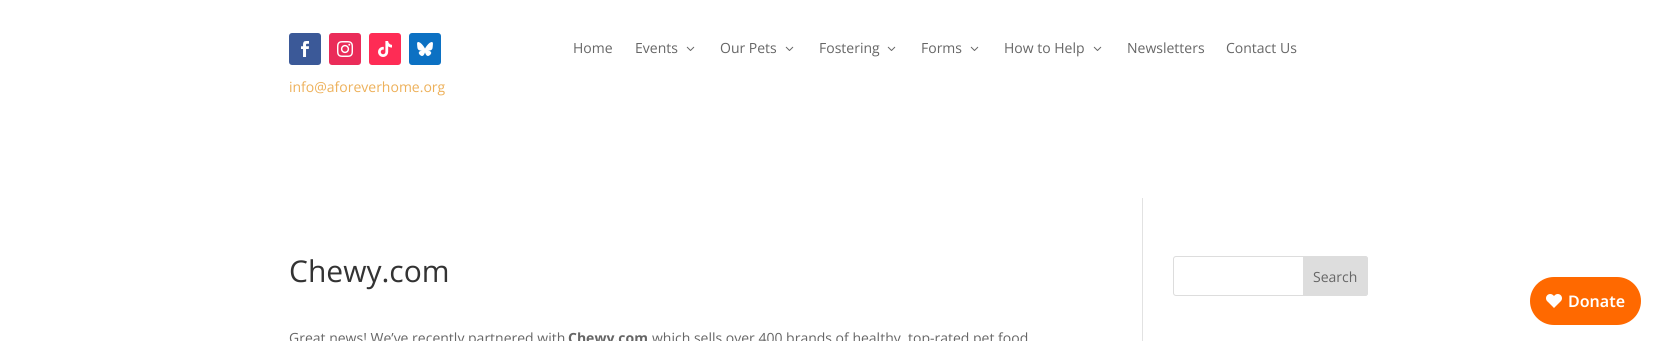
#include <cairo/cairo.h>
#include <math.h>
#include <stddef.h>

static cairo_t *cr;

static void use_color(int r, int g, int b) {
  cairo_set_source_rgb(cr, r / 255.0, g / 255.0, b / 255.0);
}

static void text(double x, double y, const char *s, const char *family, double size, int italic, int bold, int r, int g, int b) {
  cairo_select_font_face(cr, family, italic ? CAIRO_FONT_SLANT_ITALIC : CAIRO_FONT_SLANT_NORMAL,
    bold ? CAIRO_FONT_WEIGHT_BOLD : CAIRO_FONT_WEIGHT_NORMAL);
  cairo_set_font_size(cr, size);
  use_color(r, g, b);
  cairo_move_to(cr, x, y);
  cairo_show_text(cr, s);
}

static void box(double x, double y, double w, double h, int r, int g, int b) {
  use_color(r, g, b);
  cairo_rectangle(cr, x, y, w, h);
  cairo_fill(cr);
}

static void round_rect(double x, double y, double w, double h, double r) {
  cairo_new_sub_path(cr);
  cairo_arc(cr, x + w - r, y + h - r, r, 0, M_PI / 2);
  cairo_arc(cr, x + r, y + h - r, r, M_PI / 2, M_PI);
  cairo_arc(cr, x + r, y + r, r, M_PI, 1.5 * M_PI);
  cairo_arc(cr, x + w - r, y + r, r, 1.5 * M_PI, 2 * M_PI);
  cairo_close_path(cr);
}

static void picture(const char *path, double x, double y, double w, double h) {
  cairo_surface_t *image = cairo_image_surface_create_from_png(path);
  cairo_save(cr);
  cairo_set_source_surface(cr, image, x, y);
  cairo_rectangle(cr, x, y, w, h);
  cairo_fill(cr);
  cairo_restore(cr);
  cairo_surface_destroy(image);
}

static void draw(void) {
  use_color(255, 255, 255);
  cairo_paint(cr);
  picture("img_01.png", 686, 46, 9, 5);
  picture("img_01.png", 785, 46, 9, 5);
  picture("img_01.png", 887, 46, 9, 5);
  picture("img_01.png", 970, 46, 9, 5);
  picture("img_01.png", 1093, 46, 9, 5);
  use_color(59, 89, 152);
  round_rect(289, 33, 32, 32, 3);
  cairo_fill(cr);
  picture("img_02.png", 301, 41, 8, 16);
  use_color(234, 44, 89);
  round_rect(329, 33, 32, 32, 3);
  cairo_fill(cr);
  picture("img_03.png", 337, 41, 16, 16);
  use_color(254, 44, 85);
  round_rect(369, 33, 32, 32, 3);
  cairo_fill(cr);
  picture("img_04.png", 378, 41, 14, 16);
  use_color(12, 113, 195);
  round_rect(409, 33, 32, 32, 3);
  cairo_fill(cr);
  picture("img_05.png", 417, 42, 16, 14);
  box(1142, 198, 1, 143, 226, 226, 226);
  round_rect(1173.5, 256.5, 194, 39, 2.5);
  use_color(221, 221, 221);
  cairo_set_line_width(cr, 1);
  cairo_stroke(cr);
  cairo_new_path(cr);
  cairo_move_to(cr, 1303.5, 256.5);
  cairo_line_to(cr, 1365, 256.5);
  cairo_curve_to(cr, 1366.5, 256.5, 1367.5, 257.5, 1367.5, 259);
  cairo_line_to(cr, 1367.5, 293);
  cairo_curve_to(cr, 1367.5, 294.5, 1366.5, 295.5, 1365, 295.5);
  cairo_line_to(cr, 1303.5, 295.5);
  cairo_close_path(cr);
  cairo_fill_preserve(cr);
  cairo_stroke(cr);
  use_color(255, 105, 0);
  round_rect(1530, 277, 111, 48, 24);
  cairo_fill(cr);
  picture("img_06.png", 1546, 294, 16, 14);
  text(573, 53, "Home", "Open Sans", 14, 0, 0, 102, 102, 102);
  text(635, 53, "Events", "Open Sans", 14, 0, 0, 102, 102, 102);
  text(720, 53, "Our Pets", "Open Sans", 14, 0, 0, 102, 102, 102);
  text(819, 53, "Fostering", "Open Sans", 14, 0, 0, 102, 102, 102);
  text(921, 53, "Forms", "Open Sans", 14, 0, 0, 102, 102, 102);
  text(1004, 53, "How to Help", "Open Sans", 14, 0, 0, 102, 102, 102);
  text(1127, 53, "Newsletters", "Open Sans", 14, 0, 0, 102, 102, 102);
  text(1226, 53, "Contact Us", "Open Sans", 14, 0, 0, 102, 102, 102);
  text(289, 92, "info@aforeverhome.org", "Open Sans", 14, 0, 0, 237, 176, 89);
  text(289, 282, "Chewy.com", "Open Sans", 30, 0, 0, 51, 51, 51);
  text(289, 343, "Great news! We’ve recently partnered with", "Open Sans", 14, 0, 0, 102, 102, 102);
  text(568, 343, "Chewy.com", "Open Sans", 14, 0, 1, 102, 102, 102);
  text(652, 343, "which sells over 400 brands of healthy, top-rated pet food", "Open Sans", 14, 0, 0, 102, 102, 102);
  text(1313, 282, "Search", "Open Sans", 14, 0, 0, 102, 102, 102);
  text(1568, 307, "Donate", "Noto Sans SemiBold", 16, 0, 0, 255, 255, 255);
}

int main(void) {
  cairo_surface_t *surface = cairo_image_surface_create(CAIRO_FORMAT_RGB24, 1657, 341);
  cr = cairo_create(surface);
  cairo_font_options_t *options = cairo_font_options_create();
  cairo_font_options_set_hint_metrics(options, CAIRO_HINT_METRICS_OFF);
  cairo_font_options_set_hint_style(options, CAIRO_HINT_STYLE_NONE);
  cairo_set_font_options(cr, options);
  cairo_set_miter_limit(cr, 4);
  draw();
  cairo_surface_write_to_png(surface, "out.png");
  cairo_font_options_destroy(options);
  cairo_destroy(cr);
  cairo_surface_destroy(surface);
  return 0;
}
